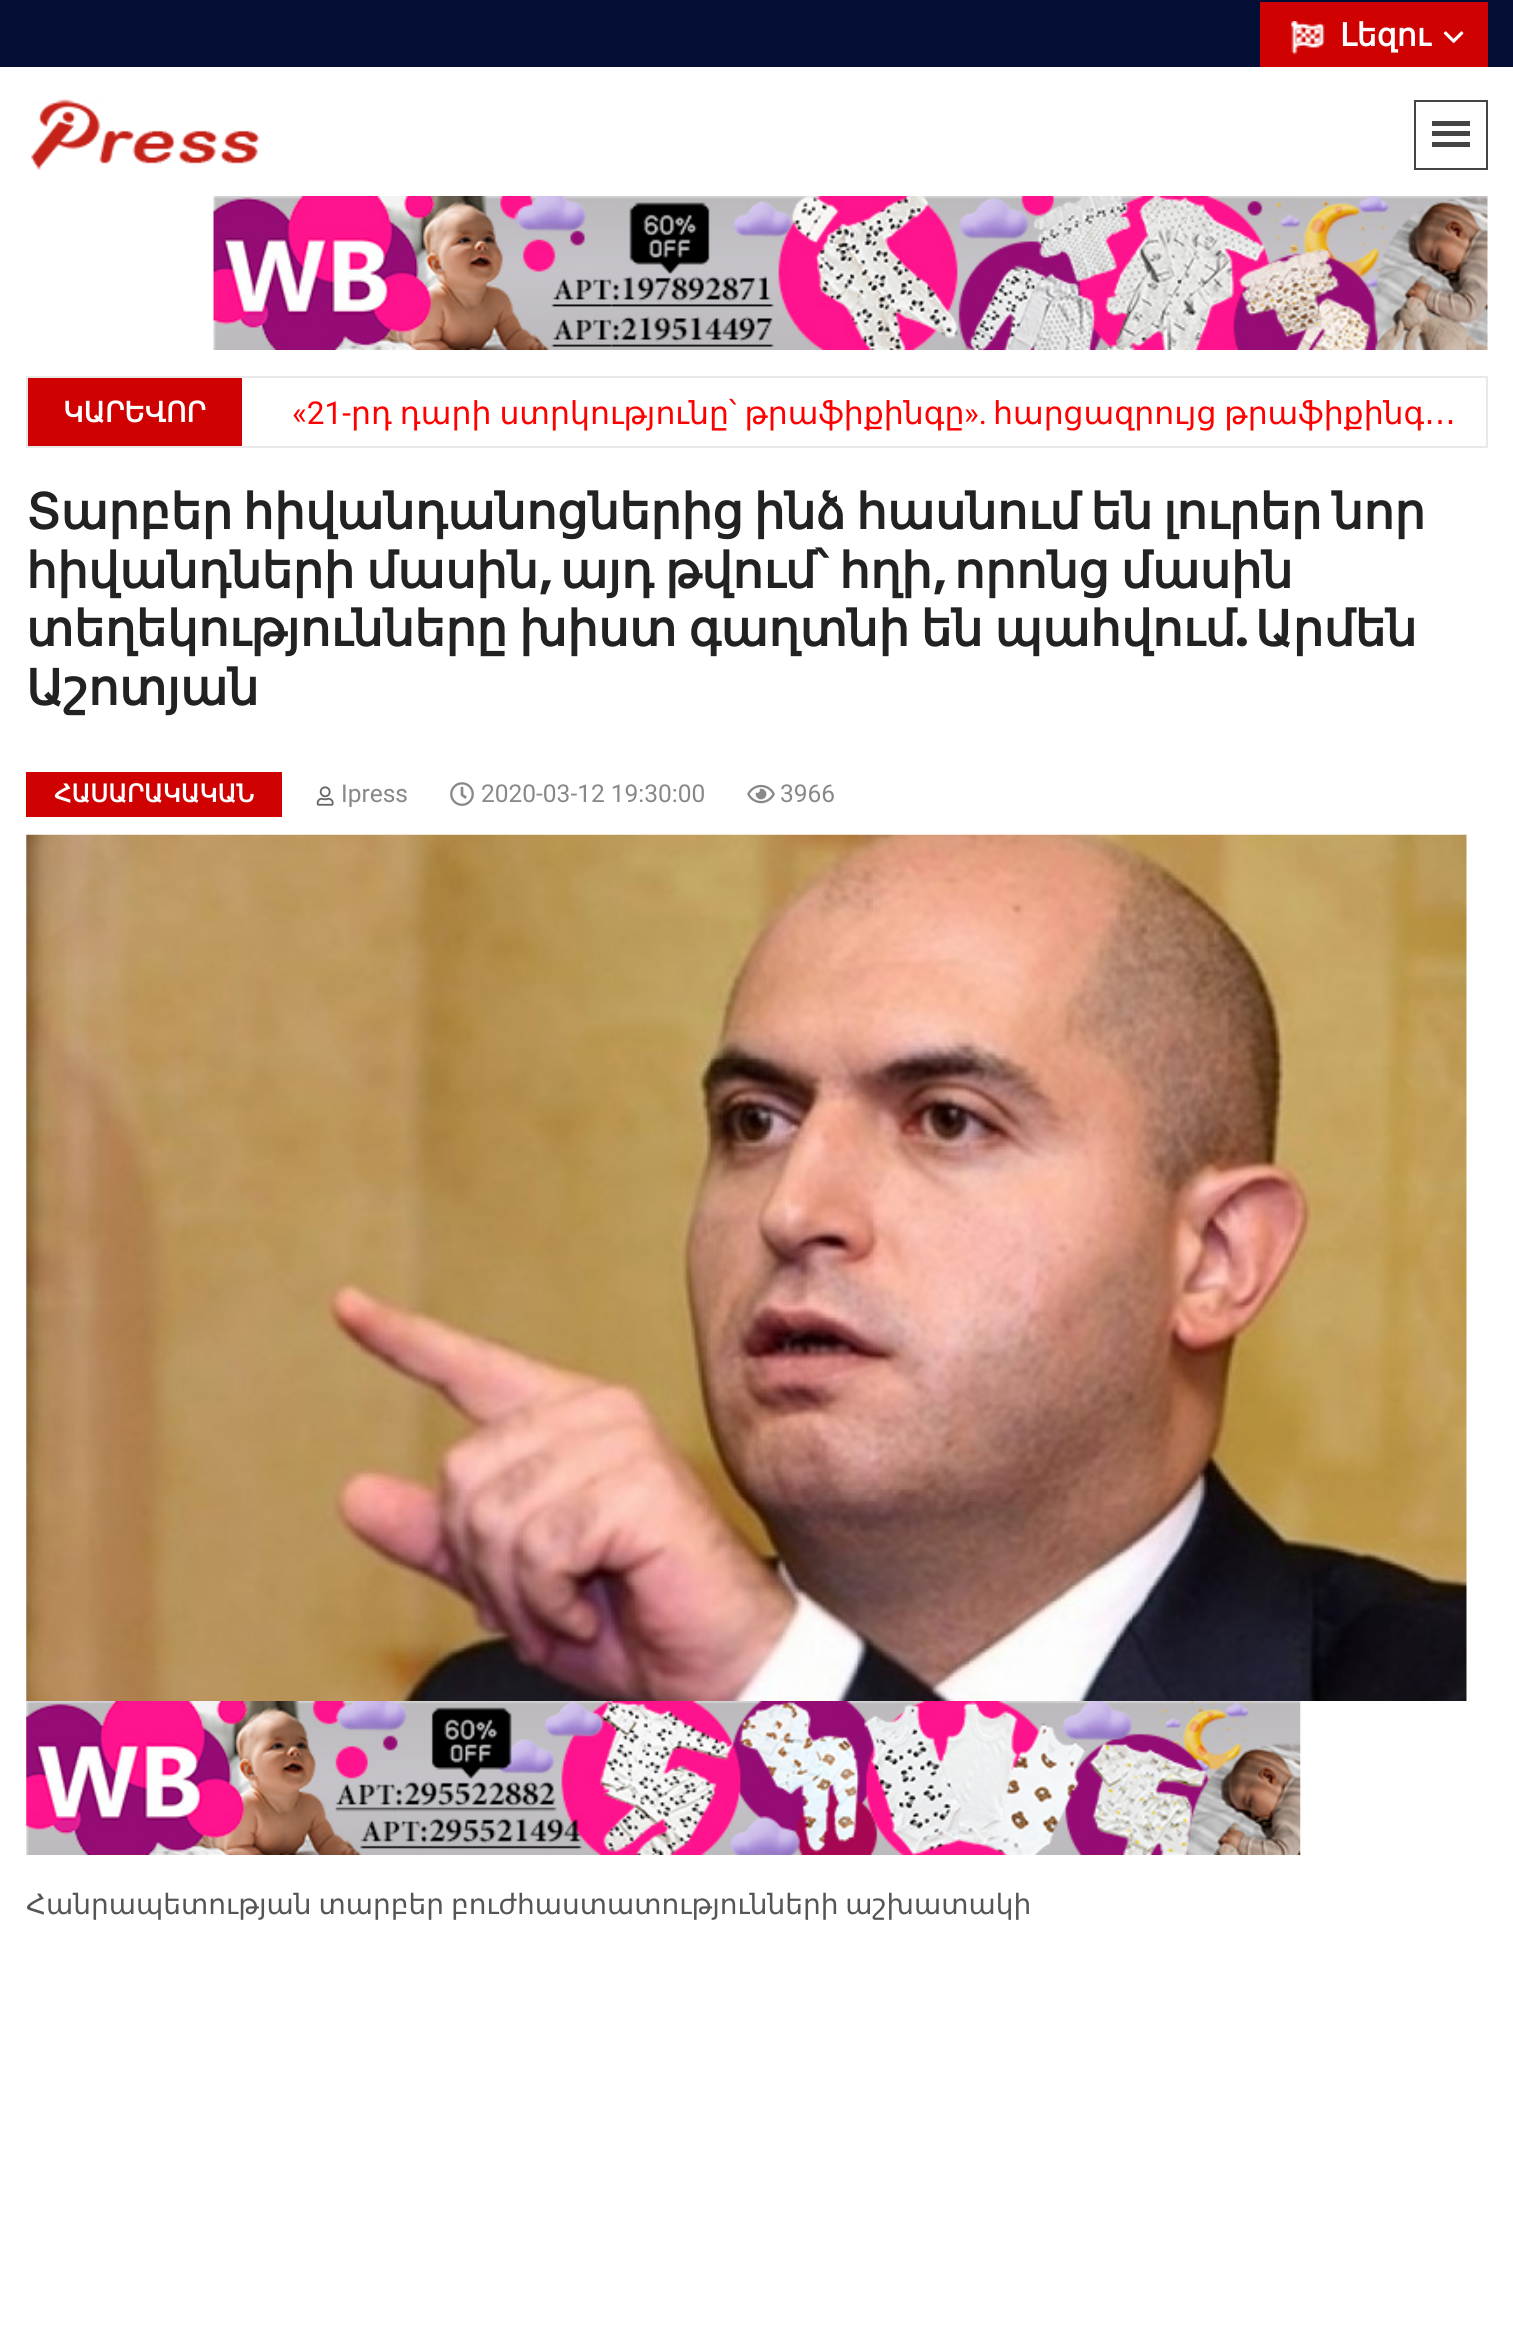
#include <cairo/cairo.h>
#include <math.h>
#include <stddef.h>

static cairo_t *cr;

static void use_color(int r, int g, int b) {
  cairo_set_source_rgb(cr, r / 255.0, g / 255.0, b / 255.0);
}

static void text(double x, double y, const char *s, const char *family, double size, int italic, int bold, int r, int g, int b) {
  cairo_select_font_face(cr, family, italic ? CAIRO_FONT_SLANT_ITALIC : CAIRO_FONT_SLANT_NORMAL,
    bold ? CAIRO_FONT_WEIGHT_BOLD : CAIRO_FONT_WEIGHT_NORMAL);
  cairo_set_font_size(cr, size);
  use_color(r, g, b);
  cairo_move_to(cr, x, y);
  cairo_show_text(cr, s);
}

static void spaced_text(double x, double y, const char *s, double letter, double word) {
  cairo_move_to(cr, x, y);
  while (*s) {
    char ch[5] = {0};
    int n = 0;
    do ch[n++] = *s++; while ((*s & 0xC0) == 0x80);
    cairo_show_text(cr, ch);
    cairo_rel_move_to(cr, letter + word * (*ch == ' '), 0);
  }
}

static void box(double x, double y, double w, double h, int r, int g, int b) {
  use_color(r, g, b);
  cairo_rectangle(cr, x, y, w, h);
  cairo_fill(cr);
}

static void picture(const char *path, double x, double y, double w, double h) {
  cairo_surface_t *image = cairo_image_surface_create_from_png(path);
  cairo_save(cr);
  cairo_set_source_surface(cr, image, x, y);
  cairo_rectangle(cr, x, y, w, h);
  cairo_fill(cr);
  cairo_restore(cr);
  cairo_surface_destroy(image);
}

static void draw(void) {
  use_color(255, 255, 255);
  cairo_paint(cr);
  box(0, 0, 1513, 67, 4, 13, 51);
  box(1260, 2, 228, 65, 208, 1, 1);
  picture("img_01.png", 1290, 21, 35, 34);
  picture("img_02.png", 1443, 31, 21, 12);
  picture("img_03.png", 31, 99, 229, 71);
  cairo_rectangle(cr, 1415, 101, 72, 68);
  use_color(68, 68, 68);
  cairo_stroke(cr);
  box(1432, 121, 38, 5, 68, 68, 68);
  box(1432, 131, 38, 5, 68, 68, 68);
  box(1432, 142, 38, 5, 68, 68, 68);
  picture("img_04.png", 213, 196, 1275, 154);
  cairo_rectangle(cr, 27, 377, 1460, 70);
  use_color(233, 233, 233);
  cairo_stroke(cr);
  box(28, 378, 214, 68, 208, 1, 1);
  box(26, 772, 256, 45, 208, 1, 1);
  picture("img_05.png", 316, 786, 18, 20);
  picture("img_06.png", 450, 782, 24, 24);
  picture("img_07.png", 747, 784, 28, 20);
  picture("img_08.png", 26, 834, 1441, 867);
  picture("img_09.png", 26, 1701, 1275, 154);
  text(1340, 46, "Լեզու", "DejaVu Sans", 31.5, 0, 1, 255, 255, 255);
  text(63, 422, "ԿԱՐԵՎՈՐ", "DejaVu Sans", 28, 0, 1, 255, 255, 255);
  text(292, 424, "«21-", "Roboto", 31.5, 0, 0, 255, 0, 0);
  cairo_select_font_face(cr, "DejaVu Sans", CAIRO_FONT_SLANT_NORMAL, CAIRO_FONT_WEIGHT_NORMAL);
  spaced_text(351, 424, "րդ դարի ստրկությունը՝ թրաֆիքինգը", 0, -2);
  text(964, 424, "».", "Roboto", 31.5, 0, 0, 255, 0, 0);
  cairo_select_font_face(cr, "DejaVu Sans", CAIRO_FONT_SLANT_NORMAL, CAIRO_FONT_WEIGHT_NORMAL);
  spaced_text(993, 424, "հարցազրույց թրաֆիքինգ…", 0, -2);
  cairo_select_font_face(cr, "DejaVu Sans", CAIRO_FONT_SLANT_NORMAL, CAIRO_FONT_WEIGHT_BOLD);
  cairo_set_font_size(cr, 49);
  use_color(34, 34, 34);
  spaced_text(26, 529, "Տարբեր հիվանդանոցներից ինձ հասնում են լուրեր նոր", 0, -5.25);
  spaced_text(26, 588, "հիվանդների մասին", 0, -4);
  text(539, 588, ",", "Poppins", 49, 0, 1, 34, 34, 34);
  cairo_select_font_face(cr, "DejaVu Sans", CAIRO_FONT_SLANT_NORMAL, CAIRO_FONT_WEIGHT_BOLD);
  spaced_text(560, 588, "այդ թվում՝ հղի", 0, -4);
  text(933, 588, ",", "Poppins", 49, 0, 1, 34, 34, 34);
  cairo_select_font_face(cr, "DejaVu Sans", CAIRO_FONT_SLANT_NORMAL, CAIRO_FONT_WEIGHT_BOLD);
  spaced_text(954, 588, "որոնց մասին", 0, -4);
  spaced_text(26, 646, "տեղեկությունները խիստ գաղտնի են պահվում", 0, -4);
  text(1235, 646, ".", "Poppins", 49, 0, 1, 34, 34, 34);
  text(1255, 646, "Արմեն", "DejaVu Sans", 49, 0, 1, 34, 34, 34);
  text(26, 705, "Աշոտյան", "DejaVu Sans", 49, 0, 1, 34, 34, 34);
  text(54, 802, "ՀԱՍԱՐԱԿԱԿԱՆ", "DejaVu Sans", 24.5, 0, 1, 255, 255, 255);
  text(341, 802, "Ipress", "Roboto", 24.5, 0, 0, 136, 136, 136);
  text(481, 802, "2020-03-12 19:30:00", "Roboto", 24.5, 0, 0, 136, 136, 136);
  text(780, 802, "3966", "Roboto", 24.5, 0, 0, 136, 136, 136);
  cairo_select_font_face(cr, "DejaVu Sans", CAIRO_FONT_SLANT_NORMAL, CAIRO_FONT_WEIGHT_NORMAL);
  cairo_set_font_size(cr, 28);
  use_color(85, 85, 85);
  spaced_text(26, 1914, "Հանրապետության տարբեր բուժհաստատությունների աշխատակի", 0, -2);
}

int main(void) {
  cairo_surface_t *surface = cairo_image_surface_create(CAIRO_FORMAT_RGB24, 1513, 2346);
  cr = cairo_create(surface);
  cairo_font_options_t *options = cairo_font_options_create();
  cairo_font_options_set_hint_metrics(options, CAIRO_HINT_METRICS_OFF);
  cairo_font_options_set_hint_style(options, CAIRO_HINT_STYLE_NONE);
  cairo_set_font_options(cr, options);
  cairo_set_miter_limit(cr, 4);
  draw();
  cairo_surface_write_to_png(surface, "out.png");
  cairo_font_options_destroy(options);
  cairo_destroy(cr);
  cairo_surface_destroy(surface);
  return 0;
}
